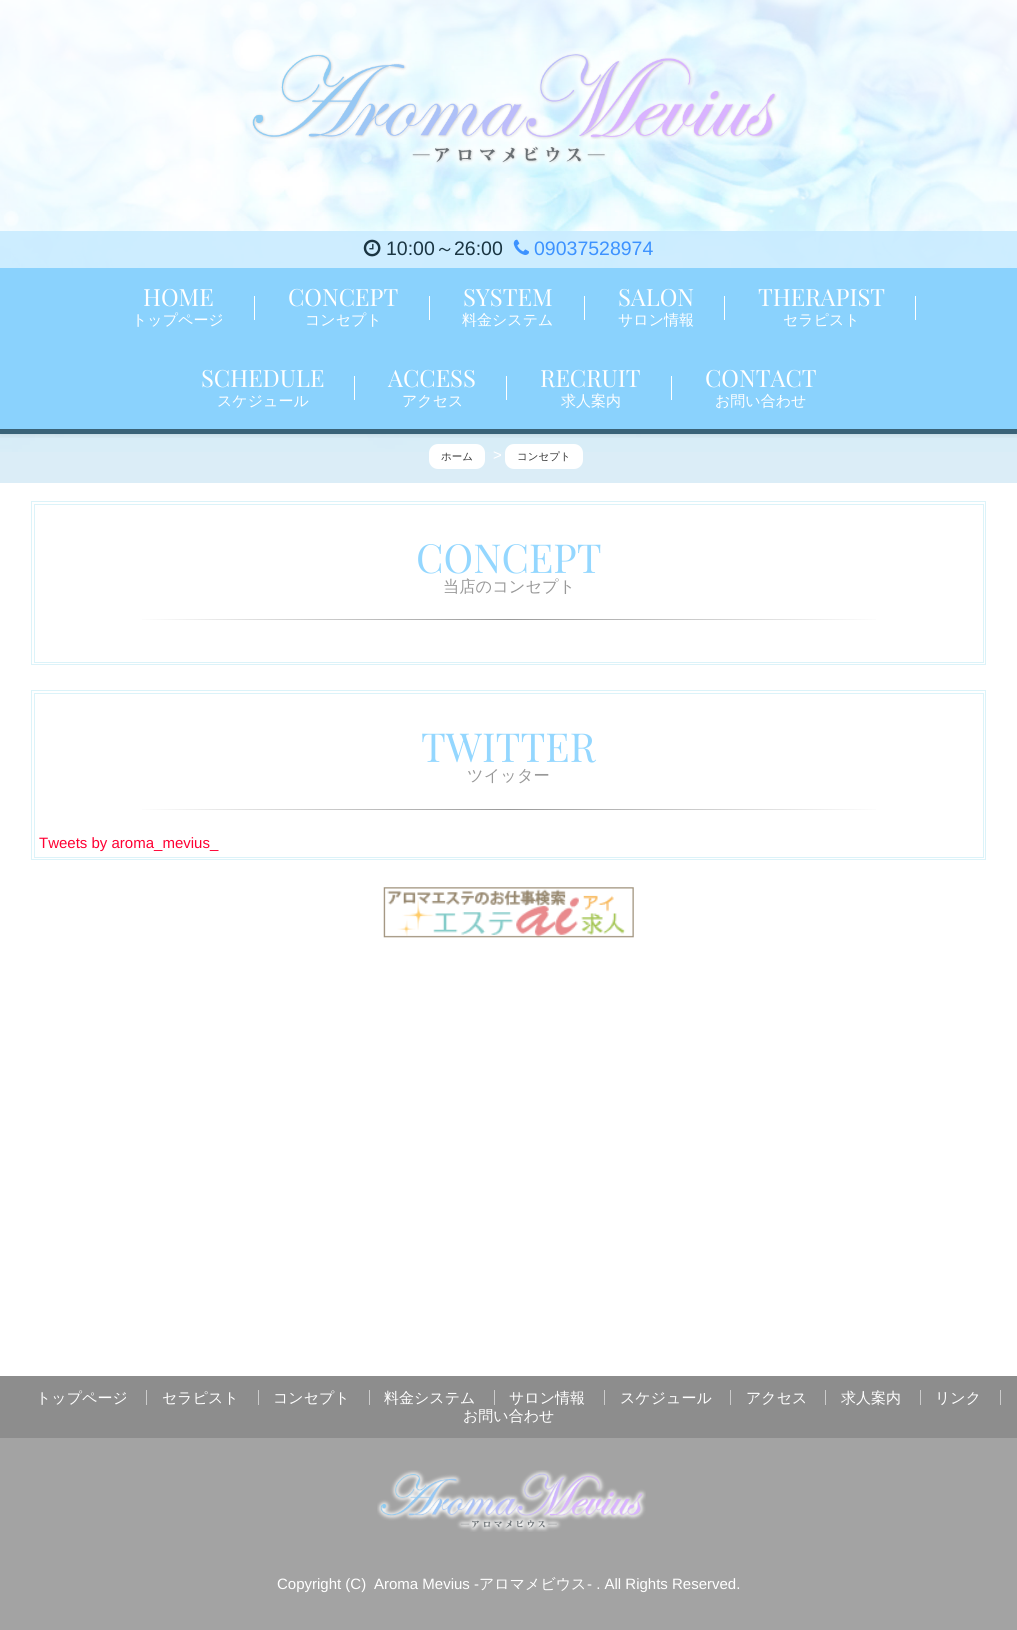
#include <cairo/cairo.h>
#include <math.h>
#include <stddef.h>

static cairo_t *cr;

static void use_color(int r, int g, int b) {
  cairo_set_source_rgb(cr, r / 255.0, g / 255.0, b / 255.0);
}

static void text(double x, double y, const char *s, const char *family, double size, int italic, int bold, int r, int g, int b) {
  cairo_select_font_face(cr, family, italic ? CAIRO_FONT_SLANT_ITALIC : CAIRO_FONT_SLANT_NORMAL,
    bold ? CAIRO_FONT_WEIGHT_BOLD : CAIRO_FONT_WEIGHT_NORMAL);
  cairo_set_font_size(cr, size);
  use_color(r, g, b);
  cairo_move_to(cr, x, y);
  cairo_show_text(cr, s);
}

static void box(double x, double y, double w, double h, int r, int g, int b) {
  use_color(r, g, b);
  cairo_rectangle(cr, x, y, w, h);
  cairo_fill(cr);
}

static void round_rect(double x, double y, double w, double h, double r) {
  cairo_new_sub_path(cr);
  cairo_arc(cr, x + w - r, y + h - r, r, 0, M_PI / 2);
  cairo_arc(cr, x + r, y + h - r, r, M_PI / 2, M_PI);
  cairo_arc(cr, x + r, y + r, r, M_PI, 1.5 * M_PI);
  cairo_arc(cr, x + w - r, y + r, r, 1.5 * M_PI, 2 * M_PI);
  cairo_close_path(cr);
}

static void shadow(double x, double y, double w, double h, double r, double blur, double alpha) {
  cairo_push_group_with_content(cr, CAIRO_CONTENT_ALPHA);
  cairo_set_operator(cr, CAIRO_OPERATOR_SOURCE);
  for (int i = 15; i >= -15 && fmin(w, h) + blur * i / 3 > 0; i -= 2) {
    double e = blur * i / 6;
    cairo_set_source_rgba(cr, 0, 0, 0, alpha * erfc((i - 1) / 8.5) / 2);
    round_rect(x - e, y - e, w + 2 * e, h + 2 * e, fmax(0, fmin(r + e + blur * .6, fmin(w, h) / 2 + e)));
    cairo_fill(cr);
  }
  cairo_pattern_t *soft = cairo_pop_group(cr);
  cairo_mask(cr, soft);
  cairo_pattern_destroy(soft);
}

static void picture(const char *path, double x, double y, double w, double h) {
  cairo_surface_t *image = cairo_image_surface_create_from_png(path);
  cairo_save(cr);
  cairo_set_source_surface(cr, image, x, y);
  cairo_rectangle(cr, x, y, w, h);
  cairo_fill(cr);
  cairo_restore(cr);
  cairo_surface_destroy(image);
}

static void draw(void) {
  cairo_pattern_t *gradient;
  use_color(255, 255, 255);
  cairo_paint(cr);
  picture("img_01.png", 0, 0, 1017, 452);
  cairo_set_source_rgba(cr, 0.529, 0.757, 0.894, 0.3);
  cairo_rectangle(cr, 0, 434, 1017, 49);
  cairo_fill(cr);
  use_color(255, 255, 255);
  round_rect(429, 444, 56, 25, 9);
  cairo_fill(cr);
  round_rect(505, 444, 78, 25, 9);
  cairo_fill(cr);
  cairo_save(cr);
  cairo_rectangle(cr, 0, 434, 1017, 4);
  cairo_clip(cr);
  use_color(0, 0, 0);
  shadow(0, -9, 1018, 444, 0, 3, 0.1);
  cairo_restore(cr);
  gradient = cairo_pattern_create_radial(0, 0, 0, 0, 0, 1);
  cairo_pattern_set_matrix(gradient, &(cairo_matrix_t){1.0 / 719, 0, 0, 1.0 / 338, -1.0 * 509 / 719, -1.0 * 195 / 338});
  cairo_pattern_add_color_stop_rgba(gradient, 0, 1, 1, 1, 0);
  cairo_pattern_add_color_stop_rgba(gradient, 1, 1, 1, 1, 1);
  cairo_set_source(cr, gradient);
  cairo_pattern_destroy(gradient);
  cairo_rectangle(cr, 0, 0, 1017, 268);
  cairo_fill(cr);
  picture("img_02.png", 247, 48, 534, 122);
  cairo_set_source_rgba(cr, 0.788, 0.922, 1, 0.9);
  cairo_rectangle(cr, 0, 231, 1017, 37);
  cairo_fill(cr);
  picture("img_03.png", 363, 239, 18, 18);
  picture("img_04.png", 513, 239, 16, 16);
  box(0, 268, 1017, 161, 138, 210, 253);
  box(254, 296, 1, 24, 255, 255, 255);
  box(429, 296, 1, 24, 255, 255, 255);
  box(584, 296, 1, 24, 255, 255, 255);
  box(724, 296, 1, 24, 255, 255, 255);
  box(915, 296, 1, 24, 255, 255, 255);
  box(354, 376, 1, 24, 255, 255, 255);
  box(506, 376, 1, 24, 255, 255, 255);
  box(671, 376, 1, 24, 255, 255, 255);
  box(0, 429, 1017, 5, 58, 99, 120);
  cairo_rectangle(cr, 31.5, 501.5, 954, 163);
  use_color(220, 243, 249);
  cairo_set_line_width(cr, 1);
  cairo_stroke(cr);
  cairo_rectangle(cr, 34.5, 504.5, 949, 158);
  cairo_stroke(cr);
  gradient = cairo_pattern_create_linear(39, 619, 979, 619);
  cairo_pattern_add_color_stop_rgba(gradient, 0, 1, 1, 1, 1);
  cairo_pattern_add_color_stop_rgba(gradient, 0.1, 1, 1, 1, 1);
  cairo_pattern_add_color_stop_rgba(gradient, 0.5, 0.6, 0.6, 0.6, 1);
  cairo_pattern_add_color_stop_rgba(gradient, 0.9, 1, 1, 1, 1);
  cairo_pattern_add_color_stop_rgba(gradient, 1, 1, 1, 1, 1);
  cairo_set_source(cr, gradient);
  cairo_pattern_destroy(gradient);
  cairo_rectangle(cr, 142, 619, 734, 1);
  cairo_fill(cr);
  cairo_rectangle(cr, 31.5, 690.5, 954, 169);
  use_color(220, 243, 249);
  cairo_stroke(cr);
  cairo_rectangle(cr, 34.5, 693.5, 949, 164);
  cairo_stroke(cr);
  gradient = cairo_pattern_create_linear(39, 809, 979, 809);
  cairo_pattern_add_color_stop_rgba(gradient, 0, 1, 1, 1, 1);
  cairo_pattern_add_color_stop_rgba(gradient, 0.1, 1, 1, 1, 1);
  cairo_pattern_add_color_stop_rgba(gradient, 0.5, 0.6, 0.6, 0.6, 1);
  cairo_pattern_add_color_stop_rgba(gradient, 0.9, 1, 1, 1, 1);
  cairo_pattern_add_color_stop_rgba(gradient, 1, 1, 1, 1, 1);
  cairo_set_source(cr, gradient);
  cairo_pattern_destroy(gradient);
  cairo_rectangle(cr, 142, 809, 734, 1);
  cairo_fill(cr);
  picture("img_05.png", 383, 887, 251, 51);
  box(0, 1438, 1017, 192, 163, 163, 163);
  box(0, 1376, 1017, 62, 141, 141, 141);
  box(146, 1390, 1, 15, 204, 204, 204);
  box(258, 1390, 1, 15, 204, 204, 204);
  box(369, 1390, 1, 15, 204, 204, 204);
  box(494, 1390, 1, 15, 204, 204, 204);
  box(604, 1390, 1, 15, 204, 204, 204);
  box(730, 1390, 1, 15, 204, 204, 204);
  box(825, 1390, 1, 15, 204, 204, 204);
  box(920, 1390, 1, 15, 204, 204, 204);
  box(1000, 1390, 1, 15, 204, 204, 204);
  picture("img_06.png", 377, 1470, 269, 62);
  text(386, 255, "10:00", "Liberation Sans", 19.5, 0, 0, 26, 53, 66);
  text(435, 255, "～", "WenQuanYi Zen Hei Medium", 19.5, 0, 0, 26, 53, 66);
  text(454, 255, "26:00", "Liberation Sans", 19.5, 0, 0, 26, 53, 66);
  text(534, 255, "09037528974", "Liberation Sans", 19.5, 0, 0, 60, 146, 255);
  text(143, 306, "HOME", "Playfair Display", 23.75, 0, 0, 255, 255, 255);
  text(132, 325, "トップページ", "WenQuanYi Zen Hei Medium", 15, 0, 0, 255, 255, 255);
  text(288, 306, "CONCEPT", "Playfair Display", 23.75, 0, 0, 255, 255, 255);
  text(305, 325, "コンセプト", "WenQuanYi Zen Hei Medium", 15, 0, 0, 255, 255, 255);
  text(463, 306, "SYSTEM", "Playfair Display", 23.75, 0, 0, 255, 255, 255);
  text(462, 325, "料金システム", "WenQuanYi Zen Hei Medium", 15, 0, 0, 255, 255, 255);
  text(618, 306, "SALON", "Playfair Display", 23.75, 0, 0, 255, 255, 255);
  text(618, 325, "サロン情報", "WenQuanYi Zen Hei Medium", 15, 0, 0, 255, 255, 255);
  text(758, 306, "THERAPIST", "Playfair Display", 23.75, 0, 0, 255, 255, 255);
  text(783, 325, "セラピスト", "WenQuanYi Zen Hei Medium", 15, 0, 0, 255, 255, 255);
  text(201, 387, "SCHEDULE", "Playfair Display", 23.75, 0, 0, 255, 255, 255);
  text(217, 406, "スケジュール", "WenQuanYi Zen Hei Medium", 15, 0, 0, 255, 255, 255);
  text(388, 387, "ACCESS", "Playfair Display", 23.75, 0, 0, 255, 255, 255);
  text(402, 406, "アクセス", "WenQuanYi Zen Hei Medium", 15, 0, 0, 255, 255, 255);
  text(540, 387, "RECRUIT", "Playfair Display", 23.75, 0, 0, 255, 255, 255);
  text(561, 406, "求人案内", "WenQuanYi Zen Hei Medium", 15, 0, 0, 255, 255, 255);
  text(705, 387, "CONTACT", "Playfair Display", 23.75, 0, 0, 255, 255, 255);
  text(715, 406, "お問い合わせ", "WenQuanYi Zen Hei Medium", 15, 0, 0, 255, 255, 255);
  text(441, 460, "ホーム", "WenQuanYi Zen Hei Medium", 10.5, 0, 0, 51, 51, 51);
  text(493, 460, ">", "Liberation Sans", 15, 0, 0, 255, 255, 255);
  text(517, 460, "コンセプト", "WenQuanYi Zen Hei Medium", 10.5, 0, 0, 51, 51, 51);
  text(416, 573, "CONCEPT", "Playfair Display", 40, 0, 0, 148, 215, 255);
  text(443, 592, "当店のコンセプト", "WenQuanYi Zen Hei Medium", 16.25, 0, 0, 153, 153, 153);
  text(421, 762, "TWITTER", "Playfair Display", 40, 0, 0, 148, 215, 255);
  text(467, 781, "ツイッター", "WenQuanYi Zen Hei Medium", 16.25, 0, 0, 153, 153, 153);
  text(39, 848, "Tweets by aroma_mevius_", "Liberation Sans", 15, 0, 0, 255, 0, 51);
  text(36, 1403, "トップページ", "WenQuanYi Zen Hei Medium", 15, 0, 0, 255, 255, 255);
  text(162, 1403, "セラピスト", "WenQuanYi Zen Hei Medium", 15, 0, 0, 255, 255, 255);
  text(273, 1403, "コンセプト", "WenQuanYi Zen Hei Medium", 15, 0, 0, 255, 255, 255);
  text(384, 1403, "料金システム", "WenQuanYi Zen Hei Medium", 15, 0, 0, 255, 255, 255);
  text(509, 1403, "サロン情報", "WenQuanYi Zen Hei Medium", 15, 0, 0, 255, 255, 255);
  text(620, 1403, "スケジュール", "WenQuanYi Zen Hei Medium", 15, 0, 0, 255, 255, 255);
  text(746, 1403, "アクセス", "WenQuanYi Zen Hei Medium", 15, 0, 0, 255, 255, 255);
  text(841, 1403, "求人案内", "WenQuanYi Zen Hei Medium", 15, 0, 0, 255, 255, 255);
  text(935, 1403, "リンク", "WenQuanYi Zen Hei Medium", 15, 0, 0, 255, 255, 255);
  text(463, 1421, "お問い合わせ", "WenQuanYi Zen Hei Medium", 15, 0, 0, 255, 255, 255);
  text(277, 1589, "Copyright (C)", "Liberation Sans", 15, 0, 0, 255, 255, 255);
  text(374, 1589, "Aroma Mevius -", "Liberation Sans", 15, 0, 0, 255, 255, 255);
  text(479, 1589, "アロマメビウス", "WenQuanYi Zen Hei Medium", 15, 0, 0, 255, 255, 255);
  text(587, 1589, "- . All Rights Reserved.", "Liberation Sans", 15, 0, 0, 255, 255, 255);
}

int main(void) {
  cairo_surface_t *surface = cairo_image_surface_create(CAIRO_FORMAT_RGB24, 1017, 1630);
  cr = cairo_create(surface);
  cairo_font_options_t *options = cairo_font_options_create();
  cairo_font_options_set_hint_metrics(options, CAIRO_HINT_METRICS_OFF);
  cairo_font_options_set_hint_style(options, CAIRO_HINT_STYLE_NONE);
  cairo_set_font_options(cr, options);
  cairo_set_miter_limit(cr, 4);
  draw();
  cairo_surface_write_to_png(surface, "out.png");
  cairo_font_options_destroy(options);
  cairo_destroy(cr);
  cairo_surface_destroy(surface);
  return 0;
}
